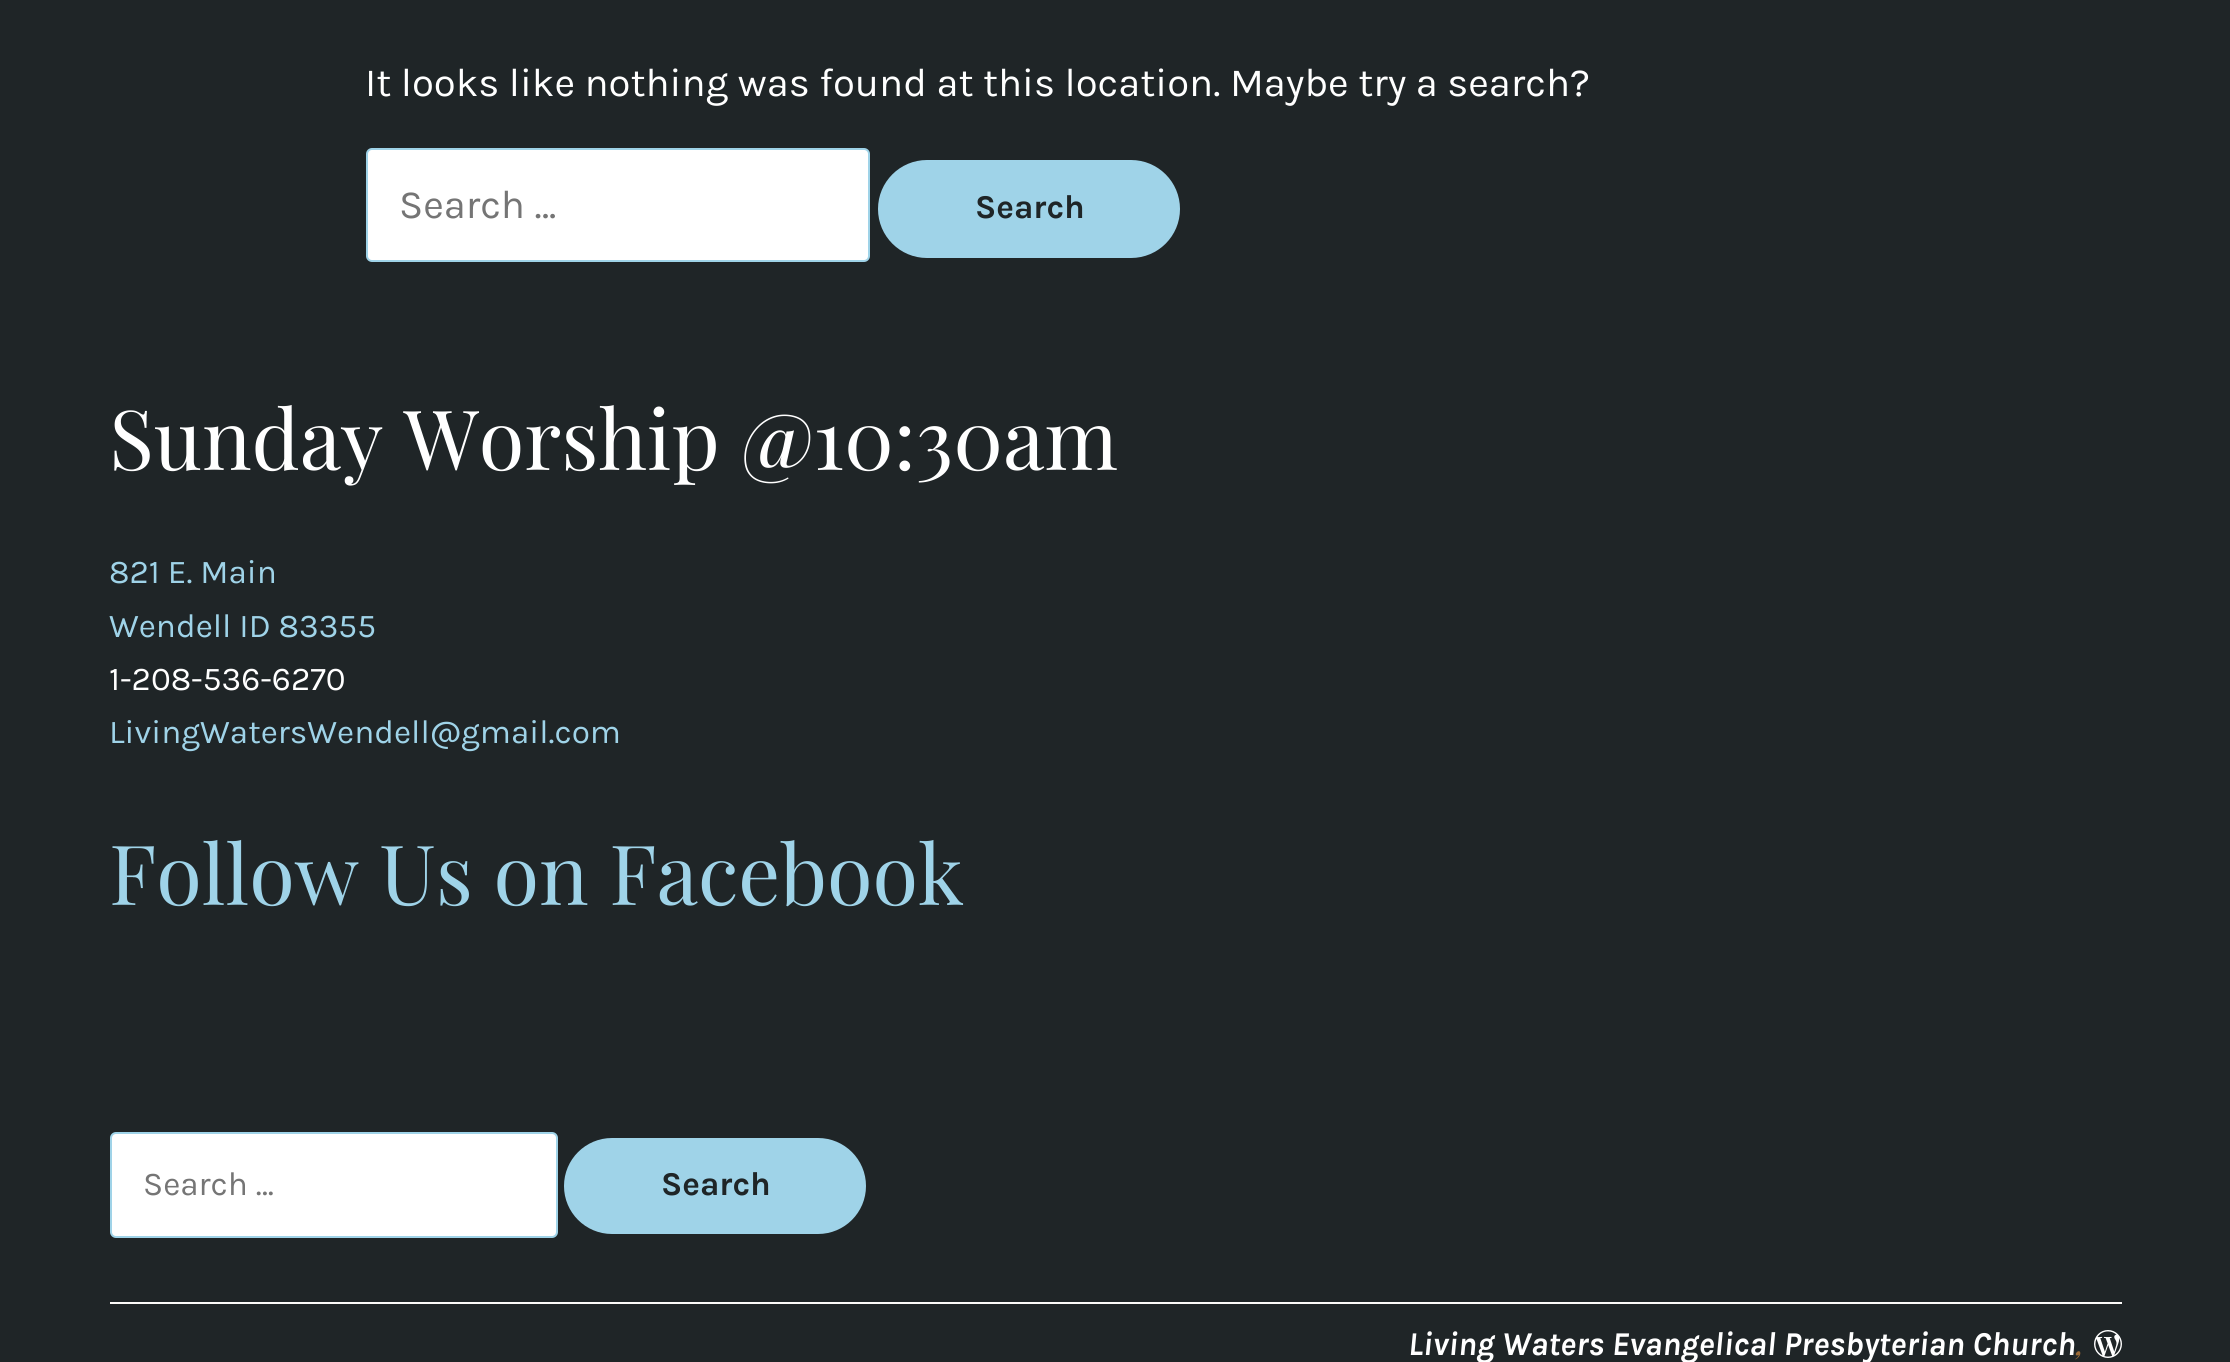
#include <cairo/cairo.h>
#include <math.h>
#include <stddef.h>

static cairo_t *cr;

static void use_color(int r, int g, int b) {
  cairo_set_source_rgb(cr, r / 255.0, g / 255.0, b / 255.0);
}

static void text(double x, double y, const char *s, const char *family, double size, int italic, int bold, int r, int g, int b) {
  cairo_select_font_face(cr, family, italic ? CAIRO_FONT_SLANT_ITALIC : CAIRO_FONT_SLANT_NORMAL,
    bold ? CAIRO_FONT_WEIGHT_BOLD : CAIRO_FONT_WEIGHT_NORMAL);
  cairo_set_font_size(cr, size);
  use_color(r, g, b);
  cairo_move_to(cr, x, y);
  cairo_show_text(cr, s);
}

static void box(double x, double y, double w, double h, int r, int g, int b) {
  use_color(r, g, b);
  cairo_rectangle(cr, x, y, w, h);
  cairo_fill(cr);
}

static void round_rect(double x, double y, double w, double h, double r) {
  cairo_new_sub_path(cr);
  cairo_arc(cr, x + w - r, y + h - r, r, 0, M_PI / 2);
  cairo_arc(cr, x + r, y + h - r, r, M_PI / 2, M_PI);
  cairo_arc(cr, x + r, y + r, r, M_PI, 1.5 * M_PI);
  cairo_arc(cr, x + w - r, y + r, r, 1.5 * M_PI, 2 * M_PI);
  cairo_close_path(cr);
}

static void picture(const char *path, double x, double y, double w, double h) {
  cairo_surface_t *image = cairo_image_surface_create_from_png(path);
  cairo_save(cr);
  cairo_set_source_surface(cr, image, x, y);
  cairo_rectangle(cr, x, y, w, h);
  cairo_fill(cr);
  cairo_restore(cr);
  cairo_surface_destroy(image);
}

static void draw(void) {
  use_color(31, 37, 39);
  cairo_paint(cr);
  use_color(255, 255, 255);
  round_rect(367, 149, 502, 112, 5);
  cairo_fill_preserve(cr);
  use_color(159, 211, 232);
  cairo_stroke(cr);
  round_rect(878, 160, 302, 98, 49);
  cairo_fill(cr);
  box(110, 1302, 2012, 2, 252, 251, 249);
  use_color(255, 255, 255);
  round_rect(111, 1133, 446, 104, 5);
  cairo_fill_preserve(cr);
  use_color(159, 211, 232);
  cairo_stroke(cr);
  round_rect(564, 1138, 302, 96, 48);
  cairo_fill(cr);
  picture("img_01.png", 2094, 1330, 28, 28);
  text(365, 96, "It looks like nothing was found at this location. Maybe try a search?", "Karla", 40, 0, 0, 255, 255, 255);
  text(399, 218, "Search …", "Karla", 40, 0, 0, 117, 117, 117);
  text(975, 218, "Search", "Karla", 33.3, 0, 1, 31, 37, 39);
  text(109, 470, "Sunday Worship @10:30am", "Playfair Display", 83, 0, 0, 255, 255, 255);
  text(109, 583, "821 E. Main", "Karla", 33.3, 0, 0, 159, 211, 232);
  text(109, 637, "Wendell ID 83355", "Karla", 33.3, 0, 0, 159, 211, 232);
  text(109, 690, "1-208-536-6270", "Karla", 33.3, 0, 0, 255, 255, 255);
  text(109, 743, "LivingWatersWendell@gmail.com", "Karla", 33.3, 0, 0, 159, 211, 232);
  text(109, 905, "Follow Us on Facebook", "Playfair Display", 83, 0, 0, 159, 211, 232);
  text(143, 1195, "Search …", "Karla", 33.3, 0, 0, 117, 117, 117);
  text(661, 1195, "Search", "Karla", 33.3, 0, 1, 31, 37, 39);
  text(1408, 1355, "Living Waters Evangelical Presbyterian Church", "Karla", 33.3, 1, 1, 255, 255, 255);
  text(2076, 1355, ",", "Playfair Display", 33.3, 1, 0, 155, 106, 54);
}

int main(void) {
  cairo_surface_t *surface = cairo_image_surface_create(CAIRO_FORMAT_RGB24, 2230, 1362);
  cr = cairo_create(surface);
  cairo_font_options_t *options = cairo_font_options_create();
  cairo_font_options_set_hint_metrics(options, CAIRO_HINT_METRICS_OFF);
  cairo_font_options_set_hint_style(options, CAIRO_HINT_STYLE_NONE);
  cairo_set_font_options(cr, options);
  cairo_set_miter_limit(cr, 4);
  draw();
  cairo_surface_write_to_png(surface, "out.png");
  cairo_font_options_destroy(options);
  cairo_destroy(cr);
  cairo_surface_destroy(surface);
  return 0;
}
